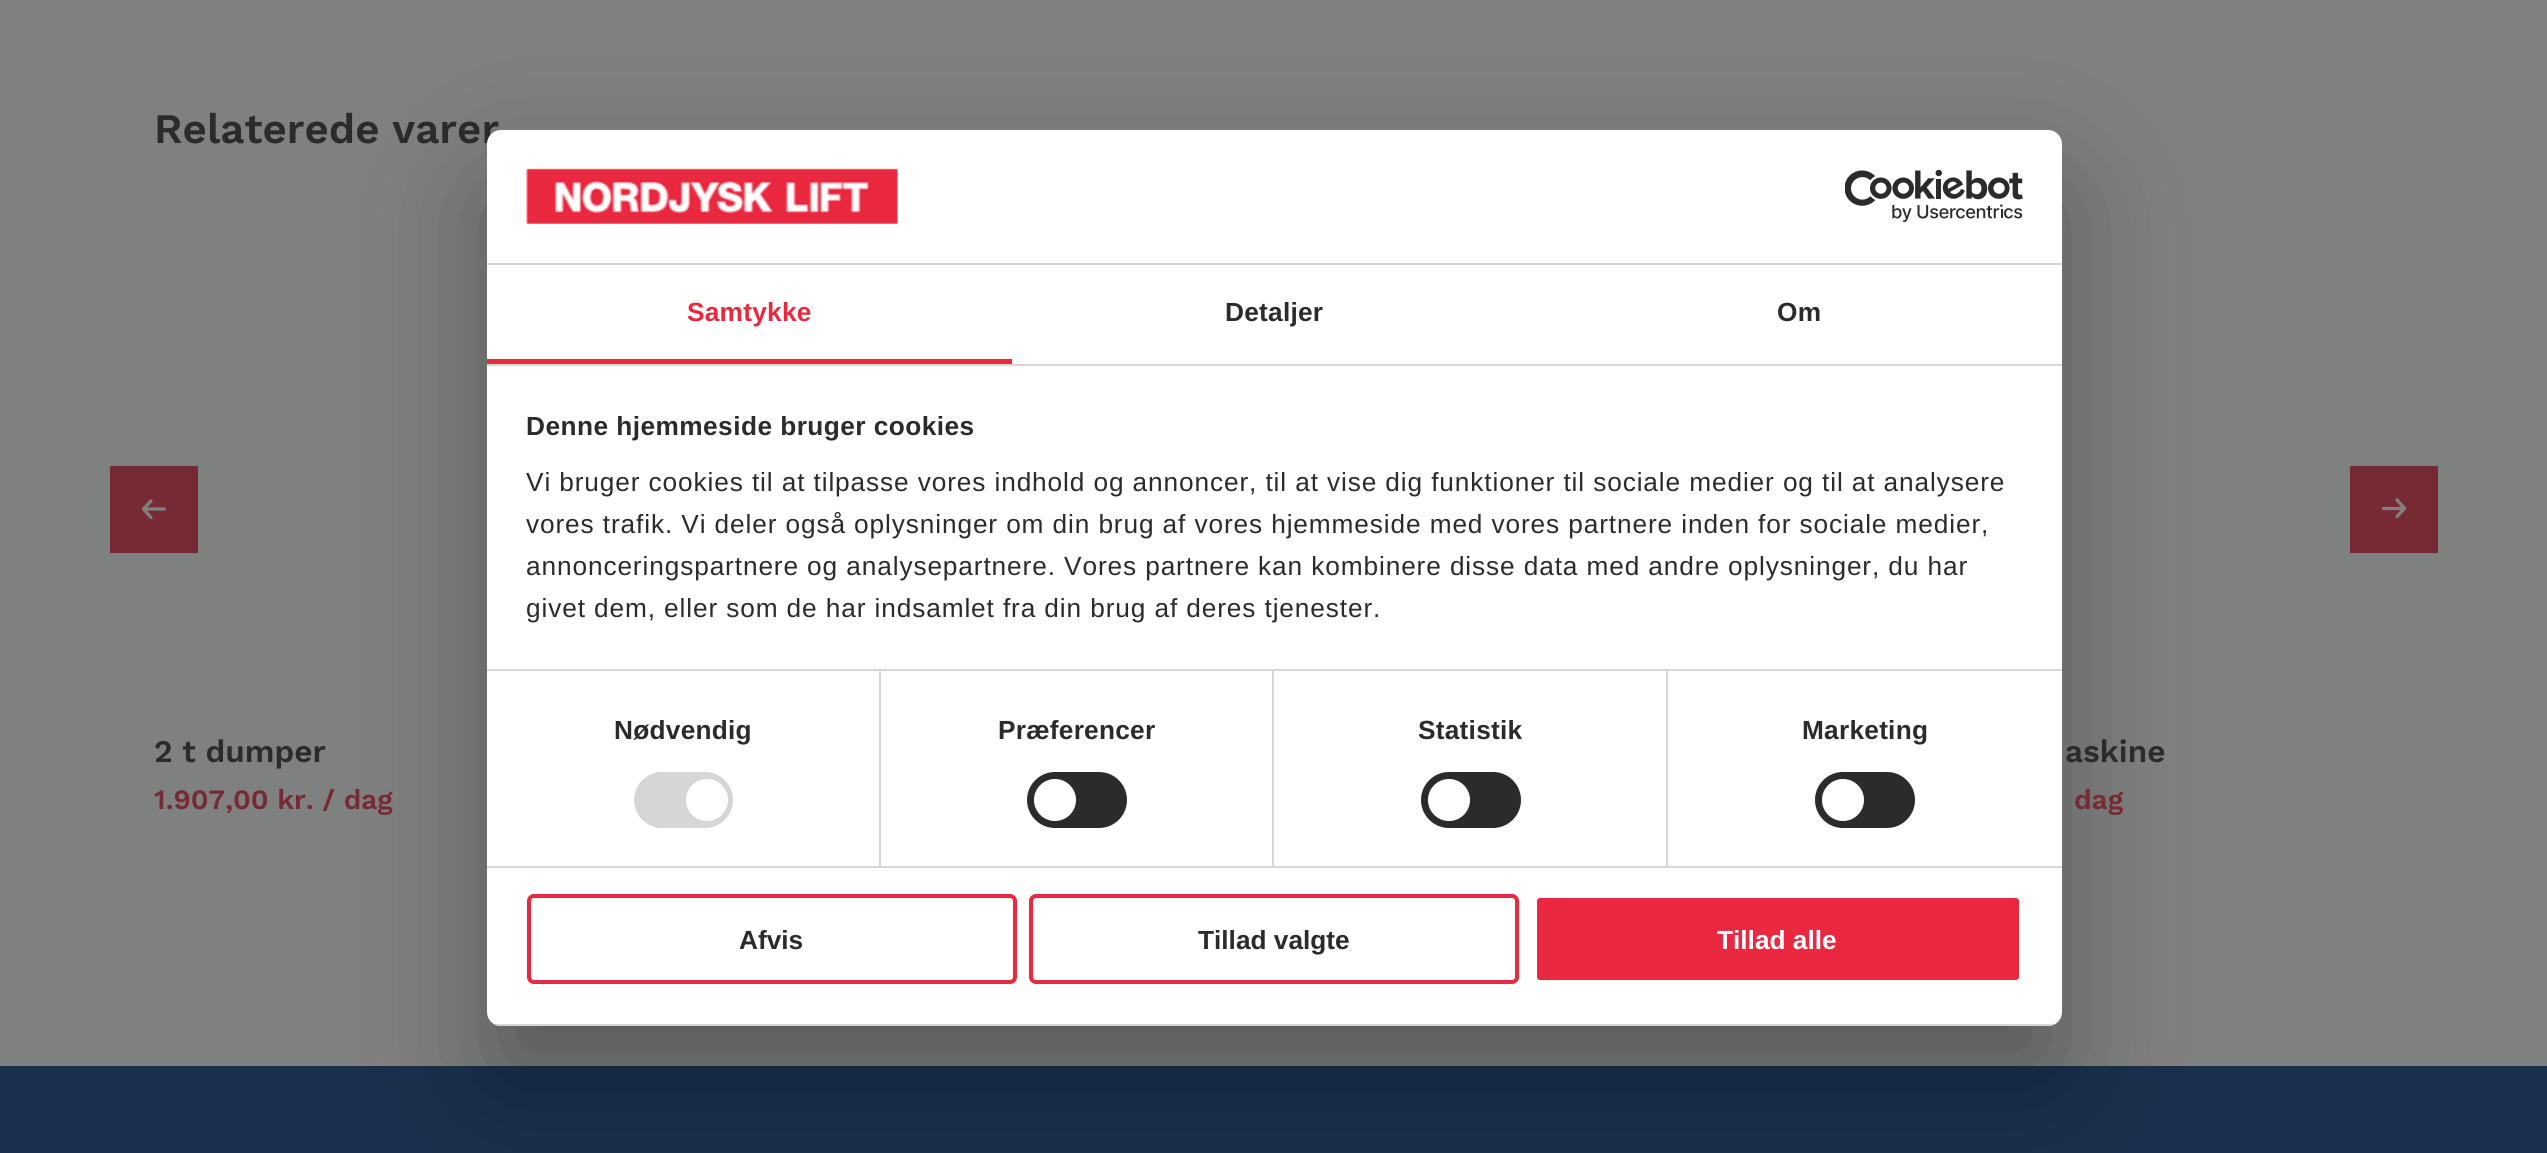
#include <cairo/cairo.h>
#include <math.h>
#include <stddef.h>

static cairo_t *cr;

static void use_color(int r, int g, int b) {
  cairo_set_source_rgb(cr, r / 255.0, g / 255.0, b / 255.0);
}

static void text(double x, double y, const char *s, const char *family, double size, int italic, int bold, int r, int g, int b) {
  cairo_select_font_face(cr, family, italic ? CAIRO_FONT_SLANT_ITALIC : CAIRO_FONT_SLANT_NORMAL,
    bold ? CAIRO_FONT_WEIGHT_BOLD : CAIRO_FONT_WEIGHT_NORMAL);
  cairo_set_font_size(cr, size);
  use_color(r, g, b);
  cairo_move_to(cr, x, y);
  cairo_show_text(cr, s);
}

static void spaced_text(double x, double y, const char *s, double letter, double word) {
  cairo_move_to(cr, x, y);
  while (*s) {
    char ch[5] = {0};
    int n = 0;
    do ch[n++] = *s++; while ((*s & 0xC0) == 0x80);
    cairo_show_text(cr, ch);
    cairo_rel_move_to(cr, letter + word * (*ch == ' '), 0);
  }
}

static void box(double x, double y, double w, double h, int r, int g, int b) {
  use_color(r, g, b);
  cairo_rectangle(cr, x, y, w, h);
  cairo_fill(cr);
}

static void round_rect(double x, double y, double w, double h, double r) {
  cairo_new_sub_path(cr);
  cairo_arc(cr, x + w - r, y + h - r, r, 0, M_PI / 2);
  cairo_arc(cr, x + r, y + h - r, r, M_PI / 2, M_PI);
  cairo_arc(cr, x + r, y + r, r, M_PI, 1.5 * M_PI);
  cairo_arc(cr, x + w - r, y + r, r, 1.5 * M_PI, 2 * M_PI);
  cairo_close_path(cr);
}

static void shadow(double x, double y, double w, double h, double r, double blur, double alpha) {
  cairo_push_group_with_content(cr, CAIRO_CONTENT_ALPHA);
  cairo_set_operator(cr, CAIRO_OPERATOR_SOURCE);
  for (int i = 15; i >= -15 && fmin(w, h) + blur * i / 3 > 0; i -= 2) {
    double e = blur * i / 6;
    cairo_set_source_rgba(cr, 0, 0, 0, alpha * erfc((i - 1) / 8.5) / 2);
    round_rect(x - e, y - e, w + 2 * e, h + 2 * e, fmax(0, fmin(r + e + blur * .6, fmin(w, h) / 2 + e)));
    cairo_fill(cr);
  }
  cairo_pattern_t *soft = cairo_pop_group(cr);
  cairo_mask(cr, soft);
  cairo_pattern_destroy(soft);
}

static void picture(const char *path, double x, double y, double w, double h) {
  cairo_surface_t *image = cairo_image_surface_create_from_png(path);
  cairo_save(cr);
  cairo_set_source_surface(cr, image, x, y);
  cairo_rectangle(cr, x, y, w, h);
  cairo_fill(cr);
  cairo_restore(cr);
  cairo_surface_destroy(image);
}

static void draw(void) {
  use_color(127, 128, 128);
  cairo_paint(cr);
  box(110, 466, 88, 87, 119, 42, 52);
  cairo_new_path(cr);
  cairo_move_to(cr, 151, 517.5);
  cairo_line_to(cr, 143.5, 509);
  cairo_line_to(cr, 151, 501);
  cairo_move_to(cr, 143.5, 509);
  cairo_line_to(cr, 164.5, 509);
  use_color(127, 128, 128);
  cairo_set_line_width(cr, 3.3);
  cairo_set_line_cap(cr, CAIRO_LINE_CAP_ROUND);
  cairo_set_line_join(cr, CAIRO_LINE_JOIN_ROUND);
  cairo_stroke(cr);
  box(2350, 466, 88, 87, 119, 42, 52);
  cairo_new_path(cr);
  cairo_move_to(cr, 2397, 500);
  cairo_line_to(cr, 2404.5, 508.5);
  cairo_line_to(cr, 2397, 516.5);
  cairo_move_to(cr, 2404.5, 508.5);
  cairo_line_to(cr, 2383.5, 508.5);
  use_color(127, 128, 128);
  cairo_stroke(cr);
  box(0, 1066, 2547, 87, 25, 49, 78);
  use_color(0, 0, 0);
  shadow(487, 186, 1575, 896, 14, 59.5, 0.3);
  text(154, 143, "Relaterede varer", "Work Sans SemiBold", 42, 0, 0, 42, 43, 44);
  text(154, 762, "2 t dumper", "Work Sans SemiBold", 31.5, 0, 0, 42, 43, 44);
  text(154, 809, "1.907,00 kr. / dag", "Work Sans SemiBold", 28, 0, 0, 119, 42, 52);
  text(2065, 762, "askine", "Work Sans SemiBold", 31.5, 0, 0, 42, 43, 44);
  text(2074, 809, "dag", "Work Sans SemiBold", 28, 0, 0, 119, 42, 52);
  use_color(255, 255, 255);
  round_rect(487, 130, 1575, 896, 14);
  cairo_fill(cr);
  box(487, 263, 1575, 2, 214, 214, 214);
  picture("img_01.png", 526, 168, 372, 56);
  picture("img_02.png", 1845, 170, 178, 52);
  box(487, 364, 1575, 2, 214, 214, 214);
  box(487, 359, 525, 5, 234, 40, 63);
  cairo_select_font_face(cr, "Liberation Sans", CAIRO_FONT_SLANT_NORMAL, CAIRO_FONT_WEIGHT_BOLD);
  cairo_set_font_size(cr, 26.25);
  spaced_text(687, 321, "Samtykke", 0.25, 0);
  use_color(42, 43, 44);
  spaced_text(1225, 321, "Detaljer", 0.25, 0);
  spaced_text(1777, 321, "Om", 0.25, 0);
  spaced_text(526, 435, "Denne hjemmeside bruger cookies", 0.45, 0);
  cairo_select_font_face(cr, "Liberation Sans", CAIRO_FONT_SLANT_NORMAL, CAIRO_FONT_WEIGHT_NORMAL);
  spaced_text(526, 491, "Vi bruger cookies til at tilpasse vores indhold og annoncer, til at vise dig funktioner til sociale medier og til at analysere", 0.88, 0);
  spaced_text(526, 533, "vores trafik. Vi deler også oplysninger om din brug af vores hjemmeside med vores partnere inden for sociale medier,", 0.88, 0);
  spaced_text(526, 575, "annonceringspartnere og analysepartnere. Vores partnere kan kombinere disse data med andre oplysninger, du har", 0.88, 0);
  spaced_text(526, 617, "givet dem, eller som de har indsamlet fra din brug af deres tjenester.", 0.88, 0);
  box(487, 866, 1575, 2, 214, 214, 214);
  box(879, 670, 2, 196, 214, 214, 214);
  cairo_select_font_face(cr, "Liberation Sans", CAIRO_FONT_SLANT_NORMAL, CAIRO_FONT_WEIGHT_BOLD);
  use_color(42, 43, 44);
  spaced_text(614, 739, "Nødvendig", 0.25, 0);
  use_color(214, 214, 214);
  round_rect(634, 772, 99, 56, 28);
  cairo_fill(cr);
  use_color(255, 255, 255);
  cairo_arc(cr, 707, 800, 21, 0, 2 * M_PI);
  cairo_fill(cr);
  box(1272, 670, 2, 196, 214, 214, 214);
  use_color(42, 43, 44);
  spaced_text(998, 739, "Præferencer", 0.25, 0);
  round_rect(1027, 772, 100, 56, 28);
  cairo_fill(cr);
  use_color(255, 255, 255);
  cairo_arc(cr, 1055, 800, 21, 0, 2 * M_PI);
  cairo_fill(cr);
  box(1666, 670, 2, 196, 214, 214, 214);
  box(487, 669, 1575, 2, 214, 214, 214);
  use_color(42, 43, 44);
  spaced_text(1418, 739, "Statistik", 0.25, 0);
  round_rect(1421, 772, 100, 56, 28);
  cairo_fill(cr);
  use_color(255, 255, 255);
  cairo_arc(cr, 1449, 800, 21, 0, 2 * M_PI);
  cairo_fill(cr);
  use_color(42, 43, 44);
  spaced_text(1802, 739, "Marketing", 0.25, 0);
  round_rect(1815, 772, 100, 56, 28);
  cairo_fill(cr);
  use_color(255, 255, 255);
  cairo_arc(cr, 1843, 800, 21, 0, 2 * M_PI);
  cairo_fill(cr);
  cairo_save(cr);
  round_rect(487, 130, 1575, 896, 14);
  cairo_clip(cr);
  box(487, 1024, 1575, 2, 214, 214, 214);
  cairo_restore(cr);
  round_rect(529, 896, 486, 86, 5);
  use_color(234, 40, 63);
  cairo_set_line_width(cr, 4);
  cairo_set_line_cap(cr, CAIRO_LINE_CAP_BUTT);
  cairo_set_line_join(cr, CAIRO_LINE_JOIN_MITER);
  cairo_stroke(cr);
  text(739, 949, "Afvis", "Liberation Sans", 26.25, 0, 1, 42, 43, 44);
  round_rect(1031, 896, 486, 86, 5);
  use_color(234, 40, 63);
  cairo_stroke(cr);
  text(1198, 949, "Tillad valgte", "Liberation Sans", 26.25, 0, 1, 42, 43, 44);
  use_color(234, 40, 63);
  round_rect(1535, 896, 486, 86, 5);
  cairo_fill_preserve(cr);
  use_color(255, 255, 255);
  cairo_stroke(cr);
  text(1717, 949, "Tillad alle", "Liberation Sans", 26.25, 0, 1, 255, 255, 255);
}

int main(void) {
  cairo_surface_t *surface = cairo_image_surface_create(CAIRO_FORMAT_RGB24, 2547, 1153);
  cr = cairo_create(surface);
  cairo_font_options_t *options = cairo_font_options_create();
  cairo_font_options_set_hint_metrics(options, CAIRO_HINT_METRICS_OFF);
  cairo_font_options_set_hint_style(options, CAIRO_HINT_STYLE_NONE);
  cairo_set_font_options(cr, options);
  cairo_set_miter_limit(cr, 4);
  draw();
  cairo_surface_write_to_png(surface, "out.png");
  cairo_font_options_destroy(options);
  cairo_destroy(cr);
  cairo_surface_destroy(surface);
  return 0;
}
